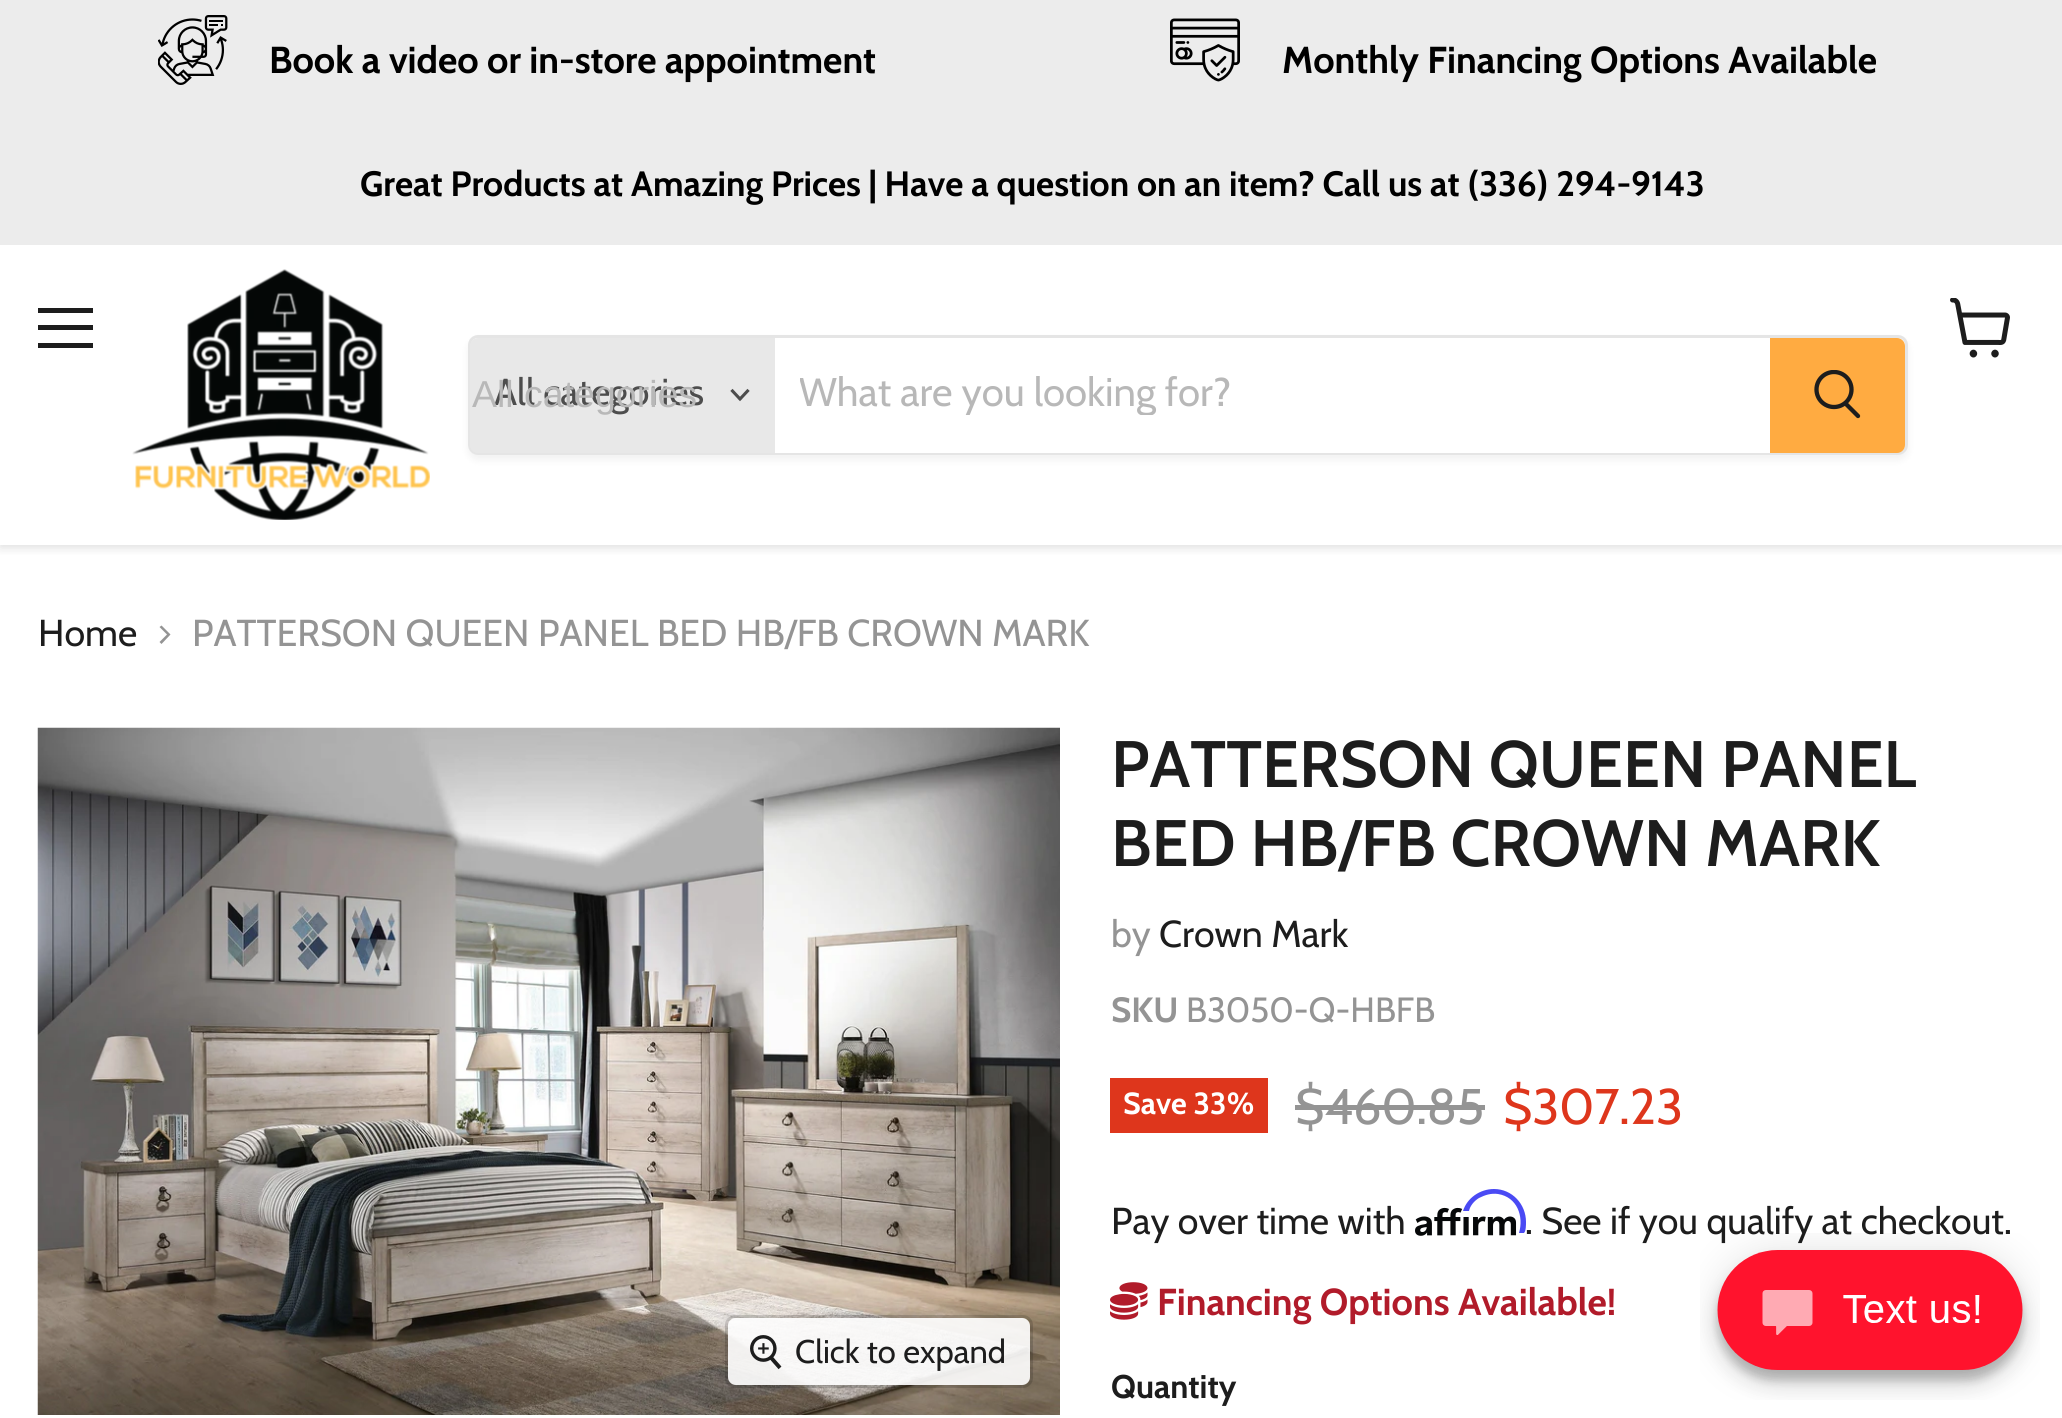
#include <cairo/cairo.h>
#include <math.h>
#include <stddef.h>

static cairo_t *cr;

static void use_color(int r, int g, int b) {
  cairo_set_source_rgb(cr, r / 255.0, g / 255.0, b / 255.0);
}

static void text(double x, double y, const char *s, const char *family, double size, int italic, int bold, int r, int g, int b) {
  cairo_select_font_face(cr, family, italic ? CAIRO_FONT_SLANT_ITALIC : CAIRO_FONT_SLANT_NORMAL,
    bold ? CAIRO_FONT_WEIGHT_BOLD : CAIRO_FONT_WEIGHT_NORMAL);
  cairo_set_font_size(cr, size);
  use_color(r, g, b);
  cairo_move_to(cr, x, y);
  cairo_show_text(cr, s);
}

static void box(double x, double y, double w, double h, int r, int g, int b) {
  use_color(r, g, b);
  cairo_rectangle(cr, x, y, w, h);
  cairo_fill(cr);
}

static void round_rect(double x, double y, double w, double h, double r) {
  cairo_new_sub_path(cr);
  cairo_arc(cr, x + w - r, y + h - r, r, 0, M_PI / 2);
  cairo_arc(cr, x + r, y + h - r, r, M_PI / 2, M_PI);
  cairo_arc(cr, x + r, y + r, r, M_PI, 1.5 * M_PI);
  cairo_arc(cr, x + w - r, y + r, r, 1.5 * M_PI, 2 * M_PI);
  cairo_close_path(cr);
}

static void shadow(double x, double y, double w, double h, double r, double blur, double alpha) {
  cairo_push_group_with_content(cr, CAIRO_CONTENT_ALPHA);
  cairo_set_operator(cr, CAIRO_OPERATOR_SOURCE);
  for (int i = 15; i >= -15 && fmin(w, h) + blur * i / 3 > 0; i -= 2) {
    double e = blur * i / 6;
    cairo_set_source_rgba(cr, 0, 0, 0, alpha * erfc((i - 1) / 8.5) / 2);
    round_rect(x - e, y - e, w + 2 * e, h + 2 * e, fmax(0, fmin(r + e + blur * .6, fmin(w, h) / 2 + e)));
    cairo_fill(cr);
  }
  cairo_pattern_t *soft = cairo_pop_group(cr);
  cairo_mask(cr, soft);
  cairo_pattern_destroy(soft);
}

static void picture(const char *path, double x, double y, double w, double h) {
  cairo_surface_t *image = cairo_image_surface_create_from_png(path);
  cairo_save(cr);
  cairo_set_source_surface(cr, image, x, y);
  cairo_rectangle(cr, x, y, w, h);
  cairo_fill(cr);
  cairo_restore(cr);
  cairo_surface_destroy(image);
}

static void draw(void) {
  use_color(255, 255, 255);
  cairo_paint(cr);
  box(0, 0, 2062, 123, 236, 236, 236);
  picture("img_01.png", 158, 15, 70, 70);
  picture("img_02.png", 1170, 18, 70, 64);
  cairo_save(cr);
  cairo_rectangle(cr, 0, 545, 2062, 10);
  cairo_clip(cr);
  use_color(128, 128, 128);
  shadow(0, 248, 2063, 300, 0, 5, 0.25);
  cairo_restore(cr);
  box(0, 123, 2062, 122, 236, 236, 236);
  box(38, 308, 55, 5, 29, 29, 29);
  box(38, 325, 55, 5, 29, 29, 29);
  box(38, 343, 55, 5, 29, 29, 29);
  picture("img_03.png", 1950, 298, 60, 60);
  picture("img_04.png", 132, 269, 298, 251);
  cairo_save(cr);
  cairo_set_fill_rule(cr, CAIRO_FILL_RULE_EVEN_ODD);
  cairo_new_path(cr);
  cairo_move_to(cr, 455, 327);
  cairo_line_to(cr, 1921, 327);
  cairo_line_to(cr, 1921, 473);
  cairo_line_to(cr, 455, 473);
  cairo_close_path(cr);
  cairo_move_to(cr, 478, 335);
  cairo_line_to(cr, 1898, 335);
  cairo_curve_to(cr, 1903.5, 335, 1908, 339.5, 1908, 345);
  cairo_line_to(cr, 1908, 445);
  cairo_curve_to(cr, 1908, 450.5, 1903.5, 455, 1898, 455);
  cairo_line_to(cr, 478, 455);
  cairo_curve_to(cr, 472.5, 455, 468, 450.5, 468, 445);
  cairo_line_to(cr, 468, 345);
  cairo_curve_to(cr, 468, 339.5, 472.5, 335, 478, 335);
  cairo_close_path(cr);
  cairo_clip(cr);
  use_color(128, 128, 128);
  shadow(468, 340, 1440, 120, 10, 4, 0.11);
  cairo_restore(cr);
  round_rect(469.5, 336.5, 1437, 117, 8.5);
  cairo_set_source_rgba(cr, 0.502, 0.502, 0.502, 0.2);
  cairo_set_line_width(cr, 3);
  cairo_stroke(cr);
  use_color(232, 232, 232);
  cairo_new_path(cr);
  cairo_move_to(cr, 478, 338);
  cairo_line_to(cr, 775, 338);
  cairo_line_to(cr, 775, 453);
  cairo_line_to(cr, 478, 453);
  cairo_curve_to(cr, 473.5, 453, 470, 449.5, 470, 445);
  cairo_line_to(cr, 470, 346);
  cairo_curve_to(cr, 470, 341.5, 473.5, 338, 478, 338);
  cairo_close_path(cr);
  cairo_fill(cr);
  cairo_new_path(cr);
  cairo_move_to(cr, 740, 399);
  cairo_line_to(cr, 747.5, 391);
  cairo_move_to(cr, 740, 399);
  cairo_line_to(cr, 732.5, 391);
  use_color(77, 77, 77);
  cairo_set_line_width(cr, 3.1);
  cairo_set_line_cap(cr, CAIRO_LINE_CAP_SQUARE);
  cairo_stroke(cr);
  box(775, 452, 995, 1, 255, 255, 255);
  use_color(255, 171, 65);
  cairo_new_path(cr);
  cairo_move_to(cr, 1771.5, 339.5);
  cairo_line_to(cr, 1897, 339.5);
  cairo_curve_to(cr, 1900.5, 339.5, 1903.5, 342.5, 1903.5, 346);
  cairo_line_to(cr, 1903.5, 445);
  cairo_curve_to(cr, 1903.5, 448.5, 1900.5, 451.5, 1897, 451.5);
  cairo_line_to(cr, 1771.5, 451.5);
  cairo_close_path(cr);
  cairo_fill_preserve(cr);
  cairo_set_line_width(cr, 3);
  cairo_set_line_cap(cr, CAIRO_LINE_CAP_BUTT);
  cairo_stroke(cr);
  cairo_new_path(cr);
  cairo_move_to(cr, 1858, 416);
  cairo_line_to(cr, 1846, 404);
  use_color(29, 29, 29);
  cairo_set_line_width(cr, 4.3);
  cairo_set_line_cap(cr, CAIRO_LINE_CAP_ROUND);
  cairo_stroke(cr);
  cairo_save(cr);
  cairo_rectangle(cr, 1813, 370, 50, 53);
  cairo_clip(cr);
  cairo_arc(cr, 1834, 389.5, 17.5, 0, 2 * M_PI);
  cairo_set_line_cap(cr, CAIRO_LINE_CAP_BUTT);
  cairo_stroke(cr);
  cairo_restore(cr);
  use_color(148, 148, 148);
  cairo_set_fill_rule(cr, CAIRO_FILL_RULE_EVEN_ODD);
  cairo_new_path(cr);
  cairo_move_to(cr, 159.5, 642);
  cairo_line_to(cr, 161.5, 644);
  cairo_line_to(cr, 170.5, 634.5);
  cairo_line_to(cr, 161.5, 625.5);
  cairo_line_to(cr, 159.5, 627);
  cairo_line_to(cr, 167, 634.5);
  cairo_close_path(cr);
  cairo_fill(cr);
  picture("img_05.png", 37, 727, 1023, 688);
  round_rect(726.5, 1316.5, 305, 70, 8.5);
  cairo_set_source_rgba(cr, 0, 0, 0, 0.15);
  cairo_set_line_width(cr, 3);
  cairo_set_line_cap(cr, CAIRO_LINE_CAP_BUTT);
  cairo_stroke(cr);
  cairo_set_source_rgba(cr, 1, 1, 1, 0.9);
  round_rect(728, 1318, 302, 67, 8);
  cairo_fill(cr);
  picture("img_06.png", 750, 1335, 32, 35);
  box(1110, 1078, 158, 55, 222, 54, 28);
  box(1295, 1105, 190, 5, 148, 148, 148);
  picture("img_07.png", 1415, 1207, 102, 29);
  use_color(74, 74, 244);
  cairo_set_fill_rule(cr, CAIRO_FILL_RULE_WINDING);
  cairo_new_path(cr);
  cairo_move_to(cr, 1494, 1189);
  cairo_curve_to(cr, 1480, 1189, 1467, 1198, 1463, 1211);
  cairo_line_to(cr, 1469, 1211);
  cairo_curve_to(cr, 1470, 1206, 1474, 1201, 1479, 1198);
  cairo_curve_to(cr, 1485, 1195, 1491, 1193, 1498, 1194);
  cairo_curve_to(cr, 1517, 1197, 1524, 1216, 1519, 1233);
  cairo_line_to(cr, 1524, 1233);
  cairo_curve_to(cr, 1526, 1231, 1526, 1225, 1526, 1222);
  cairo_curve_to(cr, 1526, 1204, 1512, 1189, 1494, 1189);
  cairo_close_path(cr);
  cairo_fill(cr);
  picture("img_08.png", 1110, 1282, 38, 38);
  text(269, 73, "Book a video or in-store appointment", "Cabin", 37.5, 0, 1, 0, 0, 0);
  text(1282, 73, "Monthly Financing Options Available", "Cabin", 37.5, 0, 1, 0, 0, 0);
  text(360, 196, "Great Products at Amazing Prices | Have a question on an item? Call us at (336) 294-9143", "Cabin", 35.15, 0, 1, 0, 0, 0);
  text(494, 405, "All categories", "Cabin", 37.5, 0, 0, 77, 77, 77);
  text(472, 407, "All categories", "Liberation Sans", 37.5, 0, 0, 184, 184, 184);
  cairo_save(cr);
  cairo_rectangle(cr, 800, 368, 945, 47);
  cairo_clip(cr);
  text(799, 406, "What are you looking for?", "Cabin", 40, 0, 0, 184, 184, 184);
  cairo_restore(cr);
  text(38, 646, "Home", "Cabin", 37.5, 0, 0, 29, 29, 29);
  text(192, 646, "PATTERSON QUEEN PANEL BED HB/FB CROWN MARK", "Cabin", 37.5, 0, 0, 148, 148, 148);
  text(795, 1363, "Click to expand", "Cabin", 32.75, 0, 0, 29, 29, 29);
  text(1111, 787, "PATTERSON QUEEN PANEL", "Cabin SemiBold", 65.6, 0, 0, 29, 29, 29);
  text(1111, 866, "BED HB/FB CROWN MARK", "Cabin SemiBold", 65.6, 0, 0, 29, 29, 29);
  text(1111, 947, "by", "Cabin", 37.5, 0, 0, 148, 148, 148);
  text(1159, 947, "Crown Mark", "Cabin", 37.5, 0, 0, 29, 29, 29);
  text(1111, 1022, "SKU", "Cabin", 35, 0, 1, 148, 148, 148);
  text(1186, 1022, "B3050-Q-HBFB", "Cabin", 35, 0, 0, 148, 148, 148);
  text(1123, 1114, "Save 33%", "Cabin", 30.5, 0, 1, 255, 255, 255);
  text(1295, 1124, "$460.85", "Cabin", 50, 0, 0, 148, 148, 148);
  text(1503, 1124, "$307.23", "Cabin", 50, 0, 0, 222, 54, 28);
  text(1111, 1234, "Pay over time with", "Cabin", 37.5, 0, 0, 29, 29, 29);
  text(1525, 1234, ". See if you qualify at checkout.", "Cabin", 37.5, 0, 0, 29, 29, 29);
  text(1157, 1315, "Financing Options Available!", "Cabin", 37.5, 0, 1, 177, 27, 42);
  text(1111, 1398, "Quantity", "Cabin", 32.75, 0, 1, 29, 29, 29);
  picture("img_09.png", 1700, 1233, 340, 167);
}

int main(void) {
  cairo_surface_t *surface = cairo_image_surface_create(CAIRO_FORMAT_RGB24, 2062, 1418);
  cr = cairo_create(surface);
  cairo_font_options_t *options = cairo_font_options_create();
  cairo_font_options_set_hint_metrics(options, CAIRO_HINT_METRICS_OFF);
  cairo_font_options_set_hint_style(options, CAIRO_HINT_STYLE_NONE);
  cairo_set_font_options(cr, options);
  cairo_set_miter_limit(cr, 4);
  draw();
  cairo_surface_write_to_png(surface, "out.png");
  cairo_font_options_destroy(options);
  cairo_destroy(cr);
  cairo_surface_destroy(surface);
  return 0;
}
